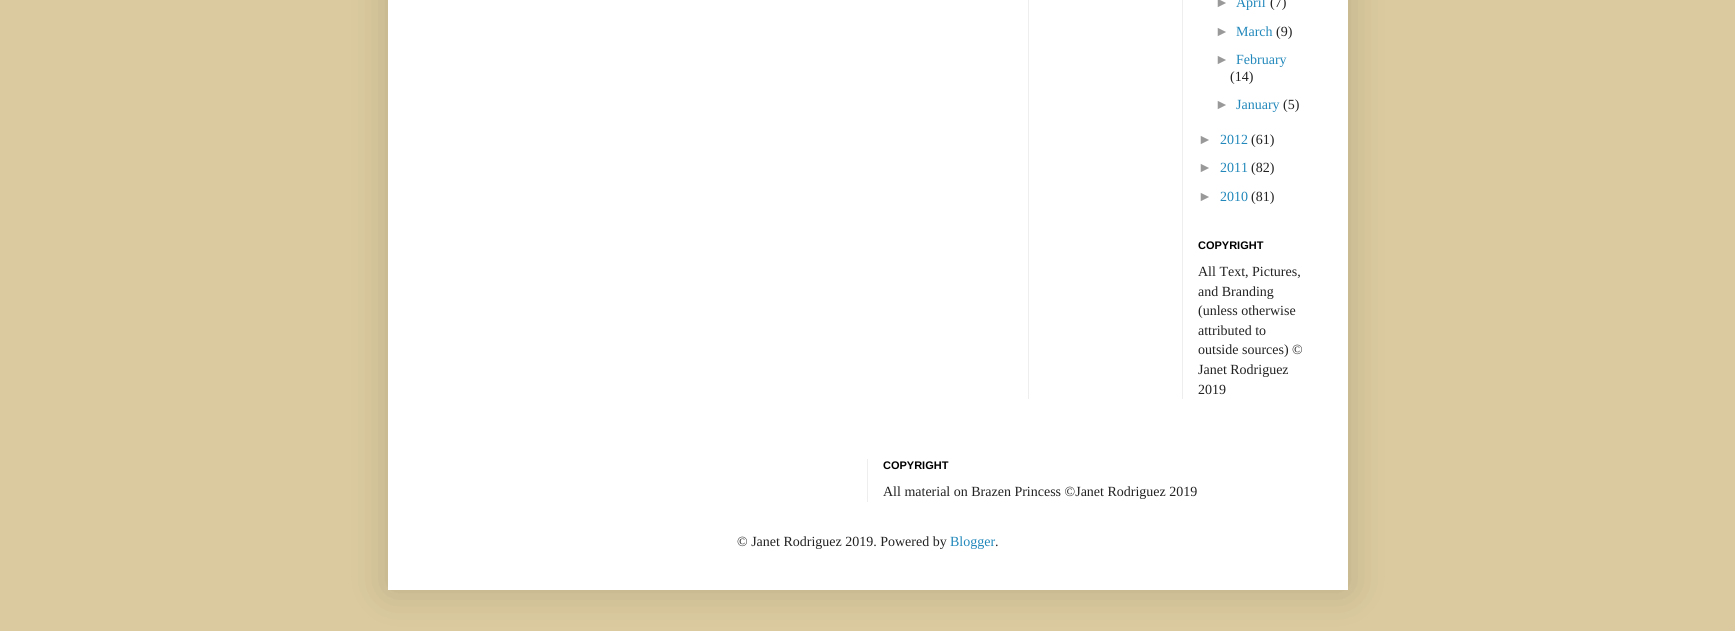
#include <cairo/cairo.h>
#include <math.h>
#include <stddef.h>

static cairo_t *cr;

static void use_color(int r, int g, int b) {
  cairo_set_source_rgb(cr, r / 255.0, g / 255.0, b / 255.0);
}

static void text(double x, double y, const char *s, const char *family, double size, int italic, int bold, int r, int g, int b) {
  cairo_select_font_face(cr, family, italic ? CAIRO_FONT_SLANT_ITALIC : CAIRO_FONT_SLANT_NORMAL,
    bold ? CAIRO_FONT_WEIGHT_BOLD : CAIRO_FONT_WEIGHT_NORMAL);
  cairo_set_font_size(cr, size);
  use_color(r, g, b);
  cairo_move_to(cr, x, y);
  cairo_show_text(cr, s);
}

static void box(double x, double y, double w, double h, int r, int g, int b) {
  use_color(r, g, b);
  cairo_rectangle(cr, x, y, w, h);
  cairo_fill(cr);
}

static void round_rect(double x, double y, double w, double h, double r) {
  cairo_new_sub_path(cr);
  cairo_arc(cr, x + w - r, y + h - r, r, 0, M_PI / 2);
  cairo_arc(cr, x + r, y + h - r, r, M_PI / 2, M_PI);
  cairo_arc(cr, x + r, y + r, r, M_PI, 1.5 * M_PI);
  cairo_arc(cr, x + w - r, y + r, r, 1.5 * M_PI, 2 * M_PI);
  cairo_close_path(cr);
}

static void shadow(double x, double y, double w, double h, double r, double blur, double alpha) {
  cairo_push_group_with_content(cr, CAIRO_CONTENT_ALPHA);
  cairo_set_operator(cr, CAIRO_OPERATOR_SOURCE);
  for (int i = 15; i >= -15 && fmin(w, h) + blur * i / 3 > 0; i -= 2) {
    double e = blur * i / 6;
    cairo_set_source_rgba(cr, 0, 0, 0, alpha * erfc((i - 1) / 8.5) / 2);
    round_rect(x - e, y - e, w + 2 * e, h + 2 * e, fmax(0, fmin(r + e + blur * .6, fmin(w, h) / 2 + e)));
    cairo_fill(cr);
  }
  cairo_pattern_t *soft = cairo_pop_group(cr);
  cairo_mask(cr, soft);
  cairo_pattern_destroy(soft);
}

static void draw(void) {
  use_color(219, 202, 159);
  cairo_paint(cr);
  use_color(0, 0, 0);
  shadow(388, -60, 960, 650, 0, 20, 0.15);
  box(388, 0, 960, 590, 255, 255, 255);
  box(1028, 0, 1, 399, 238, 238, 238);
  box(1182, 0, 1, 399, 238, 238, 238);
  box(867, 459, 1, 43, 238, 238, 238);
  text(1215, 7, "►", "Liberation Sans", 14, 0, 0, 153, 153, 153);
  text(1236, 7, "April", "Liberation Serif", 14, 0, 0, 34, 136, 187);
  text(1270, 7, "(7)", "Liberation Serif", 14, 0, 0, 34, 34, 34);
  text(1215, 36, "►", "Liberation Sans", 14, 0, 0, 153, 153, 153);
  text(1236, 36, "March", "Liberation Serif", 14, 0, 0, 34, 136, 187);
  text(1276, 36, "(9)", "Liberation Serif", 14, 0, 0, 34, 34, 34);
  text(1215, 64, "►", "Liberation Sans", 14, 0, 0, 153, 153, 153);
  text(1236, 64, "February", "Liberation Serif", 14, 0, 0, 34, 136, 187);
  text(1230, 81, "(14)", "Liberation Serif", 14, 0, 0, 34, 34, 34);
  text(1215, 109, "►", "Liberation Sans", 14, 0, 0, 153, 153, 153);
  text(1236, 109, "January", "Liberation Serif", 14, 0, 0, 34, 136, 187);
  text(1283, 109, "(5)", "Liberation Serif", 14, 0, 0, 34, 34, 34);
  text(1198, 144, "►", "Liberation Sans", 14, 0, 0, 153, 153, 153);
  text(1220, 144, "2012", "Liberation Serif", 14, 0, 0, 34, 136, 187);
  text(1251, 144, "(61)", "Liberation Serif", 14, 0, 0, 34, 34, 34);
  text(1198, 172, "►", "Liberation Sans", 14, 0, 0, 153, 153, 153);
  text(1220, 172, "2011", "Liberation Serif", 14, 0, 0, 34, 136, 187);
  text(1251, 172, "(82)", "Liberation Serif", 14, 0, 0, 34, 34, 34);
  text(1198, 201, "►", "Liberation Sans", 14, 0, 0, 153, 153, 153);
  text(1220, 201, "2010", "Liberation Serif", 14, 0, 0, 34, 136, 187);
  text(1251, 201, "(81)", "Liberation Serif", 14, 0, 0, 34, 34, 34);
  text(1198, 249, "COPYRIGHT", "Liberation Sans", 11, 0, 1, 0, 0, 0);
  text(1198, 276, "All Text, Pictures,", "Liberation Serif", 14, 0, 0, 34, 34, 34);
  text(1198, 296, "and Branding", "Liberation Serif", 14, 0, 0, 34, 34, 34);
  text(1198, 315, "(unless otherwise", "Liberation Serif", 14, 0, 0, 34, 34, 34);
  text(1198, 335, "attributed to", "Liberation Serif", 14, 0, 0, 34, 34, 34);
  text(1198, 354, "outside sources) ©", "Liberation Serif", 14, 0, 0, 34, 34, 34);
  text(1198, 374, "Janet Rodriguez", "Liberation Serif", 14, 0, 0, 34, 34, 34);
  text(1198, 394, "2019", "Liberation Serif", 14, 0, 0, 34, 34, 34);
  text(883, 469, "COPYRIGHT", "Liberation Sans", 11, 0, 1, 0, 0, 0);
  text(883, 496, "All material on Brazen Princess ©Janet Rodriguez 2019", "Liberation Serif", 14, 0, 0, 34, 34, 34);
  text(737, 546, "© Janet Rodriguez 2019. Powered by", "Liberation Serif", 14, 0, 0, 34, 34, 34);
  text(950, 546, "Blogger", "Liberation Serif", 14, 0, 0, 34, 136, 187);
  text(995, 546, ".", "Liberation Serif", 14, 0, 0, 34, 34, 34);
}

int main(void) {
  cairo_surface_t *surface = cairo_image_surface_create(CAIRO_FORMAT_RGB24, 1735, 631);
  cr = cairo_create(surface);
  cairo_font_options_t *options = cairo_font_options_create();
  cairo_font_options_set_hint_metrics(options, CAIRO_HINT_METRICS_OFF);
  cairo_font_options_set_hint_style(options, CAIRO_HINT_STYLE_NONE);
  cairo_set_font_options(cr, options);
  cairo_set_miter_limit(cr, 4);
  draw();
  cairo_surface_write_to_png(surface, "out.png");
  cairo_font_options_destroy(options);
  cairo_destroy(cr);
  cairo_surface_destroy(surface);
  return 0;
}
